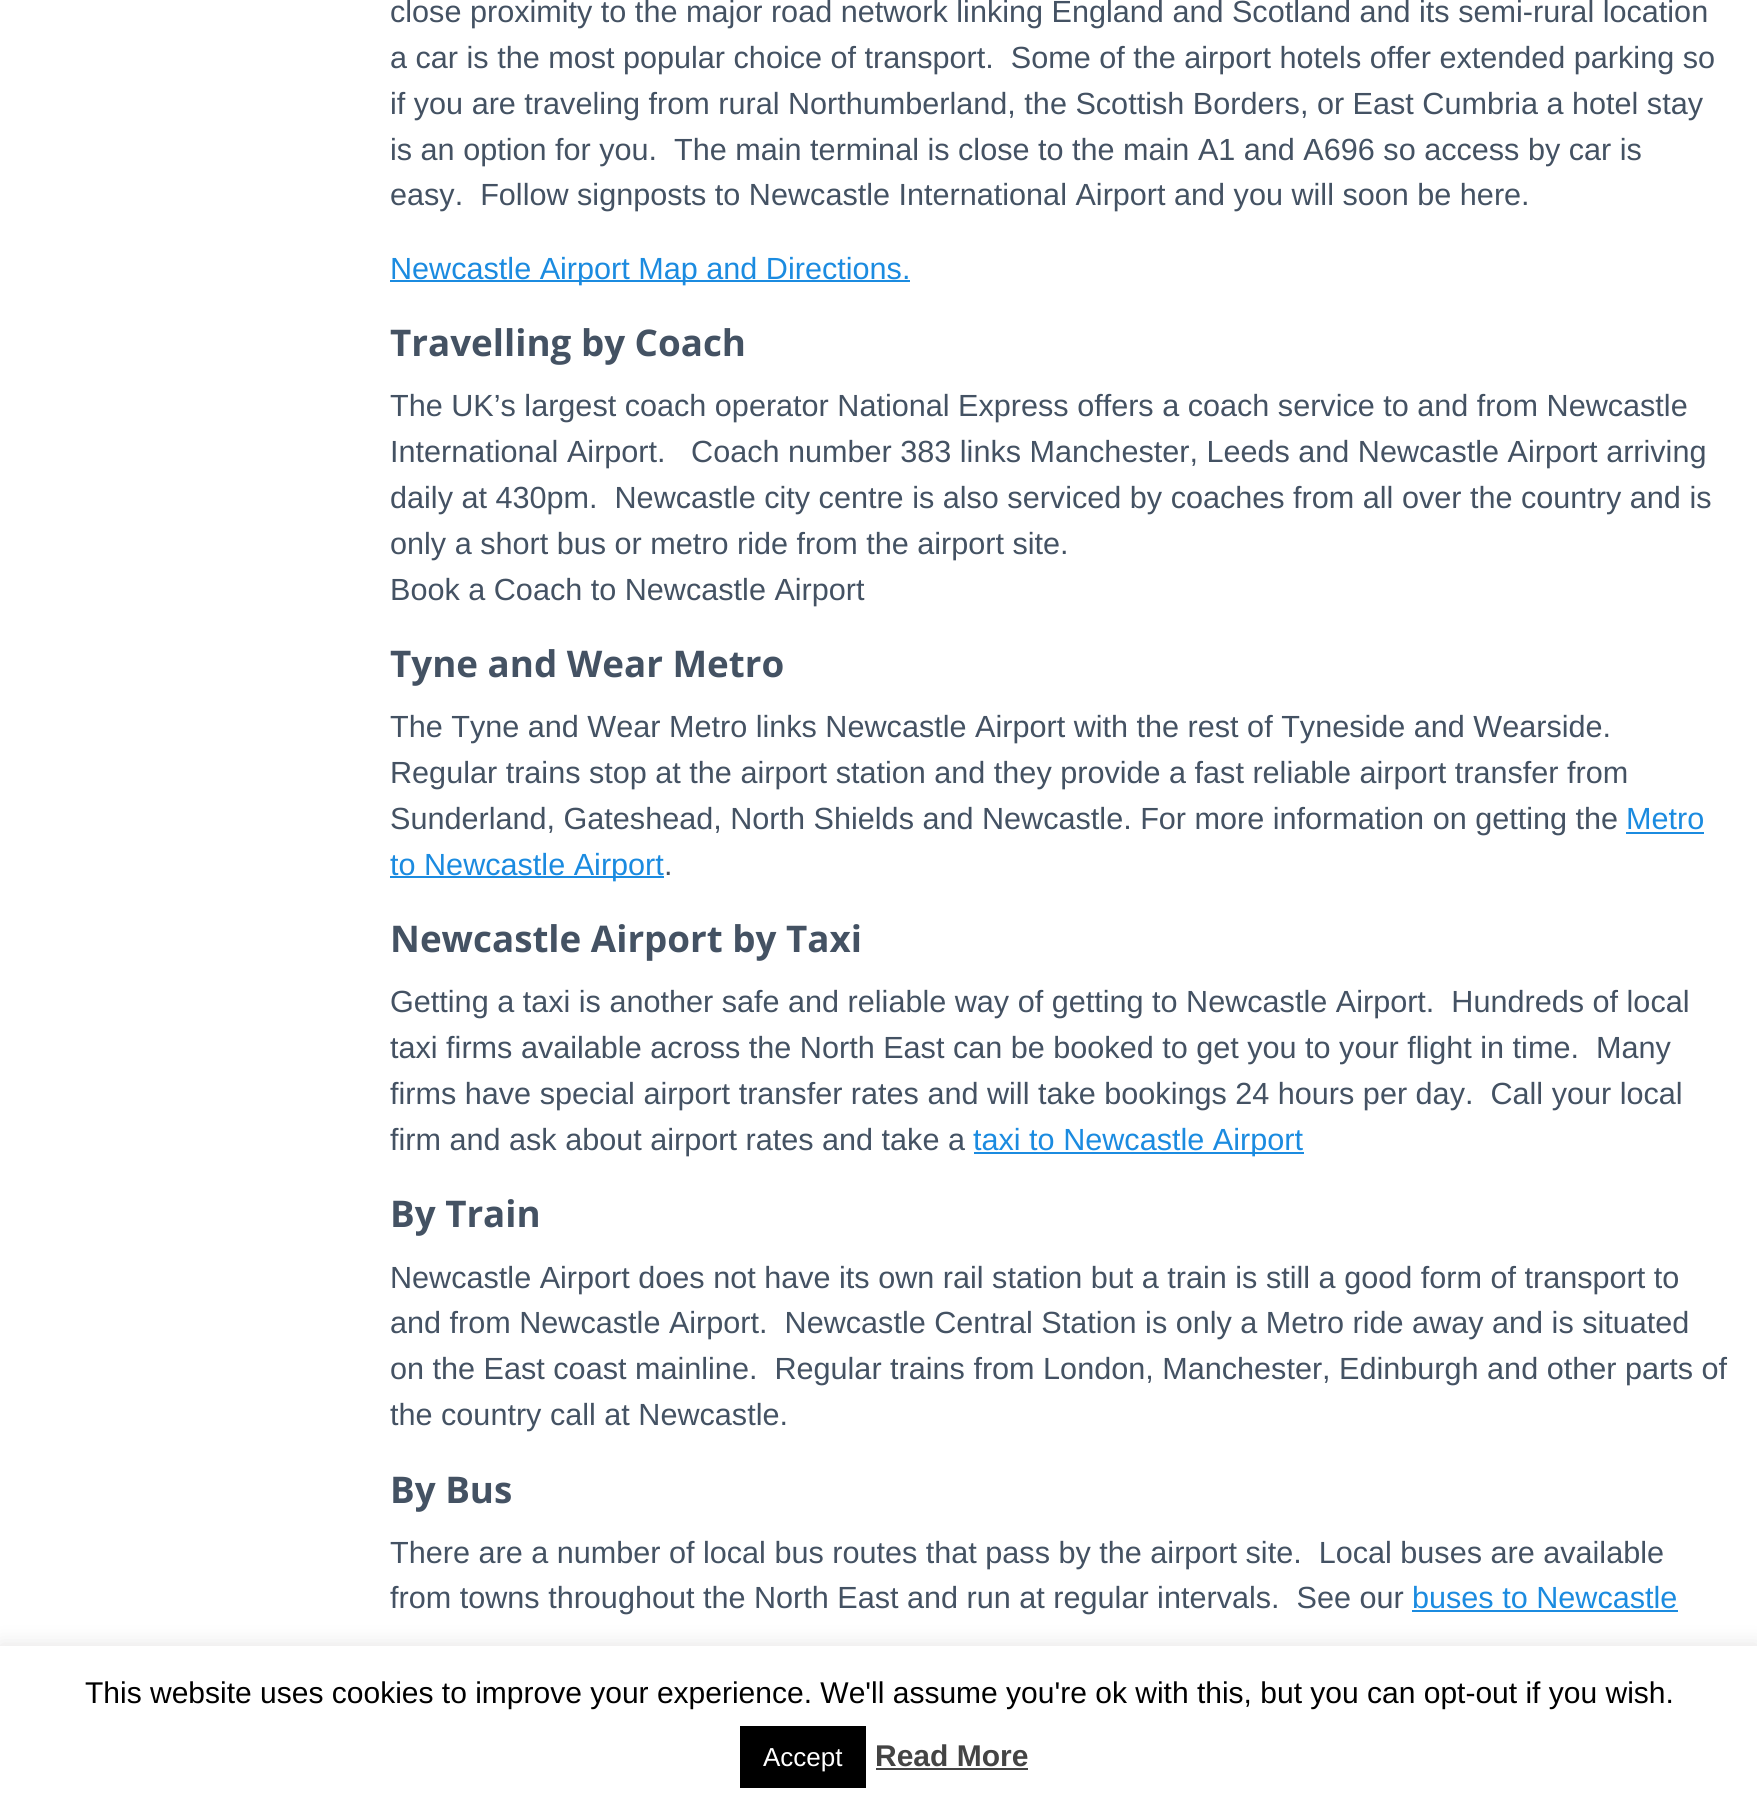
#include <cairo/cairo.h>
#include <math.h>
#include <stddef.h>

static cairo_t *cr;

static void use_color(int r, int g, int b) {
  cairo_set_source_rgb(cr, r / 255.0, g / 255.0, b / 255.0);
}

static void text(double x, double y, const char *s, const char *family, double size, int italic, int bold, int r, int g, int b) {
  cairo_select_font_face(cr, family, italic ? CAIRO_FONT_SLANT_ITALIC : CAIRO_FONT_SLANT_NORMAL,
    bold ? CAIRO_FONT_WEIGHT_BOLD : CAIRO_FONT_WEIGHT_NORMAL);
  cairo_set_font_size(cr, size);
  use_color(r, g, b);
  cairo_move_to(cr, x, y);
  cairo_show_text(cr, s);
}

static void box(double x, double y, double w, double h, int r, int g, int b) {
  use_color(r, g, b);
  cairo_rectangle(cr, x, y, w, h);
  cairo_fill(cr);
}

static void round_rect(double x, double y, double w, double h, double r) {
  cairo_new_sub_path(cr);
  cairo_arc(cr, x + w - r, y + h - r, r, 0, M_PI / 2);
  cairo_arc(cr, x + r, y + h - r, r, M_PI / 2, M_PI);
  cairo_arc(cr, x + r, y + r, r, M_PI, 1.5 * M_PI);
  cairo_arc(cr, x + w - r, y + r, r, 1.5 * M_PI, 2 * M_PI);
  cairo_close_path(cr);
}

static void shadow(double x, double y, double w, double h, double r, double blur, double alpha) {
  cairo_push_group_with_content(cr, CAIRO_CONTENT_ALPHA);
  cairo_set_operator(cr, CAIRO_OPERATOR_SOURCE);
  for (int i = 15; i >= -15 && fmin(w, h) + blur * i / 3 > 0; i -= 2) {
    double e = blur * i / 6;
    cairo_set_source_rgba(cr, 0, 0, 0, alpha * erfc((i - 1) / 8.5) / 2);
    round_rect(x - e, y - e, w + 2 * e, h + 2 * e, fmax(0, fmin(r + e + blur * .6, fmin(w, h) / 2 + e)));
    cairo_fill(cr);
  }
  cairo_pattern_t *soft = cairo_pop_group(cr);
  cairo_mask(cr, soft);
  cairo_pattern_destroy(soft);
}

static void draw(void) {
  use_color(255, 255, 255);
  cairo_paint(cr);
  box(390, 280, 520, 2, 27, 139, 224);
  box(1626, 832, 78, 2, 27, 139, 224);
  box(390, 876, 274, 2, 27, 139, 224);
  box(974, 1152, 330, 2, 27, 139, 224);
  box(1412, 1610, 266, 2, 27, 139, 224);
  use_color(172, 171, 171);
  shadow(0, 1644, 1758, 166, 0, 10, 0.3);
  box(0, 1646, 1757, 166, 255, 255, 255);
  box(740, 1726, 126, 62, 0, 0, 0);
  box(876, 1768, 152, 2, 68, 68, 68);
  text(390, 22, "close proximity to the major road network linking England and Scotland and its semi-rural location", "Liberation Sans", 30.6, 0, 0, 68, 82, 99);
  text(390, 68, "a car is the most popular choice of transport.  Some of the airport hotels offer extended parking so", "Liberation Sans", 30.6, 0, 0, 68, 82, 99);
  text(390, 114, "if you are traveling from rural Northumberland, the Scottish Borders, or East Cumbria a hotel stay", "Liberation Sans", 30.6, 0, 0, 68, 82, 99);
  text(390, 160, "is an option for you.  The main terminal is close to the main A1 and A696 so access by car is", "Liberation Sans", 30.6, 0, 0, 68, 82, 99);
  text(390, 205, "easy.  Follow signposts to Newcastle International Airport and you will soon be here.", "Liberation Sans", 30.6, 0, 0, 68, 82, 99);
  text(390, 279, "Newcastle Airport Map and Directions.", "Liberation Sans", 30.6, 0, 0, 27, 139, 224);
  text(390, 356, "Travelling by Coach", "Open Sans", 36.75, 0, 1, 68, 82, 99);
  text(390, 416, "The UK’s largest coach operator National Express offers a coach service to and from Newcastle", "Liberation Sans", 30.6, 0, 0, 68, 82, 99);
  text(390, 462, "International Airport.   Coach number 383 links Manchester, Leeds and Newcastle Airport arriving", "Liberation Sans", 30.6, 0, 0, 68, 82, 99);
  text(390, 508, "daily at 430pm.  Newcastle city centre is also serviced by coaches from all over the country and is", "Liberation Sans", 30.6, 0, 0, 68, 82, 99);
  text(390, 554, "only a short bus or metro ride from the airport site.", "Liberation Sans", 30.6, 0, 0, 68, 82, 99);
  text(390, 600, "Book a Coach to Newcastle Airport", "Liberation Sans", 30.6, 0, 0, 68, 82, 99);
  text(390, 677, "Tyne and Wear Metro", "Open Sans", 36.75, 0, 1, 68, 82, 99);
  text(390, 737, "The Tyne and Wear Metro links Newcastle Airport with the rest of Tyneside and Wearside.", "Liberation Sans", 30.6, 0, 0, 68, 82, 99);
  text(390, 783, "Regular trains stop at the airport station and they provide a fast reliable airport transfer from", "Liberation Sans", 30.6, 0, 0, 68, 82, 99);
  text(390, 829, "Sunderland, Gateshead, North Shields and Newcastle. For more information on getting the", "Liberation Sans", 30.6, 0, 0, 68, 82, 99);
  text(1626, 829, "Metro", "Liberation Sans", 30.6, 0, 0, 27, 139, 224);
  text(390, 875, "to Newcastle Airport", "Liberation Sans", 30.6, 0, 0, 27, 139, 224);
  text(664, 875, ".", "Liberation Sans", 30.6, 0, 0, 68, 82, 99);
  text(390, 952, "Newcastle Airport by Taxi", "Open Sans", 36.75, 0, 1, 68, 82, 99);
  text(390, 1012, "Getting a taxi is another safe and reliable way of getting to Newcastle Airport.  Hundreds of local", "Liberation Sans", 30.6, 0, 0, 68, 82, 99);
  text(390, 1058, "taxi firms available across the North East can be booked to get you to your flight in time.  Many", "Liberation Sans", 30.6, 0, 0, 68, 82, 99);
  text(390, 1104, "firms have special airport transfer rates and will take bookings 24 hours per day.  Call your local", "Liberation Sans", 30.6, 0, 0, 68, 82, 99);
  text(390, 1150, "firm and ask about airport rates and take a", "Liberation Sans", 30.6, 0, 0, 68, 82, 99);
  text(973, 1150, "taxi to Newcastle Airport", "Liberation Sans", 30.6, 0, 0, 27, 139, 224);
  text(390, 1227, "By Train", "Open Sans", 36.75, 0, 1, 68, 82, 99);
  text(390, 1288, "Newcastle Airport does not have its own rail station but a train is still a good form of transport to", "Liberation Sans", 30.6, 0, 0, 68, 82, 99);
  text(390, 1333, "and from Newcastle Airport.  Newcastle Central Station is only a Metro ride away and is situated", "Liberation Sans", 30.6, 0, 0, 68, 82, 99);
  text(390, 1379, "on the East coast mainline.  Regular trains from London, Manchester, Edinburgh and other parts of", "Liberation Sans", 30.6, 0, 0, 68, 82, 99);
  text(390, 1425, "the country call at Newcastle.", "Liberation Sans", 30.6, 0, 0, 68, 82, 99);
  text(390, 1503, "By Bus", "Open Sans", 36.75, 0, 1, 68, 82, 99);
  text(390, 1563, "There are a number of local bus routes that pass by the airport site.  Local buses are available", "Liberation Sans", 30.6, 0, 0, 68, 82, 99);
  text(390, 1608, "from towns throughout the North East and run at regular intervals.  See our", "Liberation Sans", 30.6, 0, 0, 68, 82, 99);
  text(1412, 1608, "buses to Newcastle", "Liberation Sans", 30.6, 0, 0, 27, 139, 224);
  text(85, 1703, "This website uses cookies to improve your experience. We'll assume you're ok with this, but you can opt-out if you wish.", "Liberation Sans", 30, 0, 0, 0, 0, 0);
  text(763, 1766, "Accept", "Liberation Sans", 26, 0, 0, 255, 255, 255);
  text(875, 1766, "Read More", "Liberation Sans", 30, 0, 1, 68, 68, 68);
}

int main(void) {
  cairo_surface_t *surface = cairo_image_surface_create(CAIRO_FORMAT_RGB24, 1757, 1812);
  cr = cairo_create(surface);
  cairo_font_options_t *options = cairo_font_options_create();
  cairo_font_options_set_hint_metrics(options, CAIRO_HINT_METRICS_OFF);
  cairo_font_options_set_hint_style(options, CAIRO_HINT_STYLE_NONE);
  cairo_set_font_options(cr, options);
  cairo_set_miter_limit(cr, 4);
  draw();
  cairo_surface_write_to_png(surface, "out.png");
  cairo_font_options_destroy(options);
  cairo_destroy(cr);
  cairo_surface_destroy(surface);
  return 0;
}
